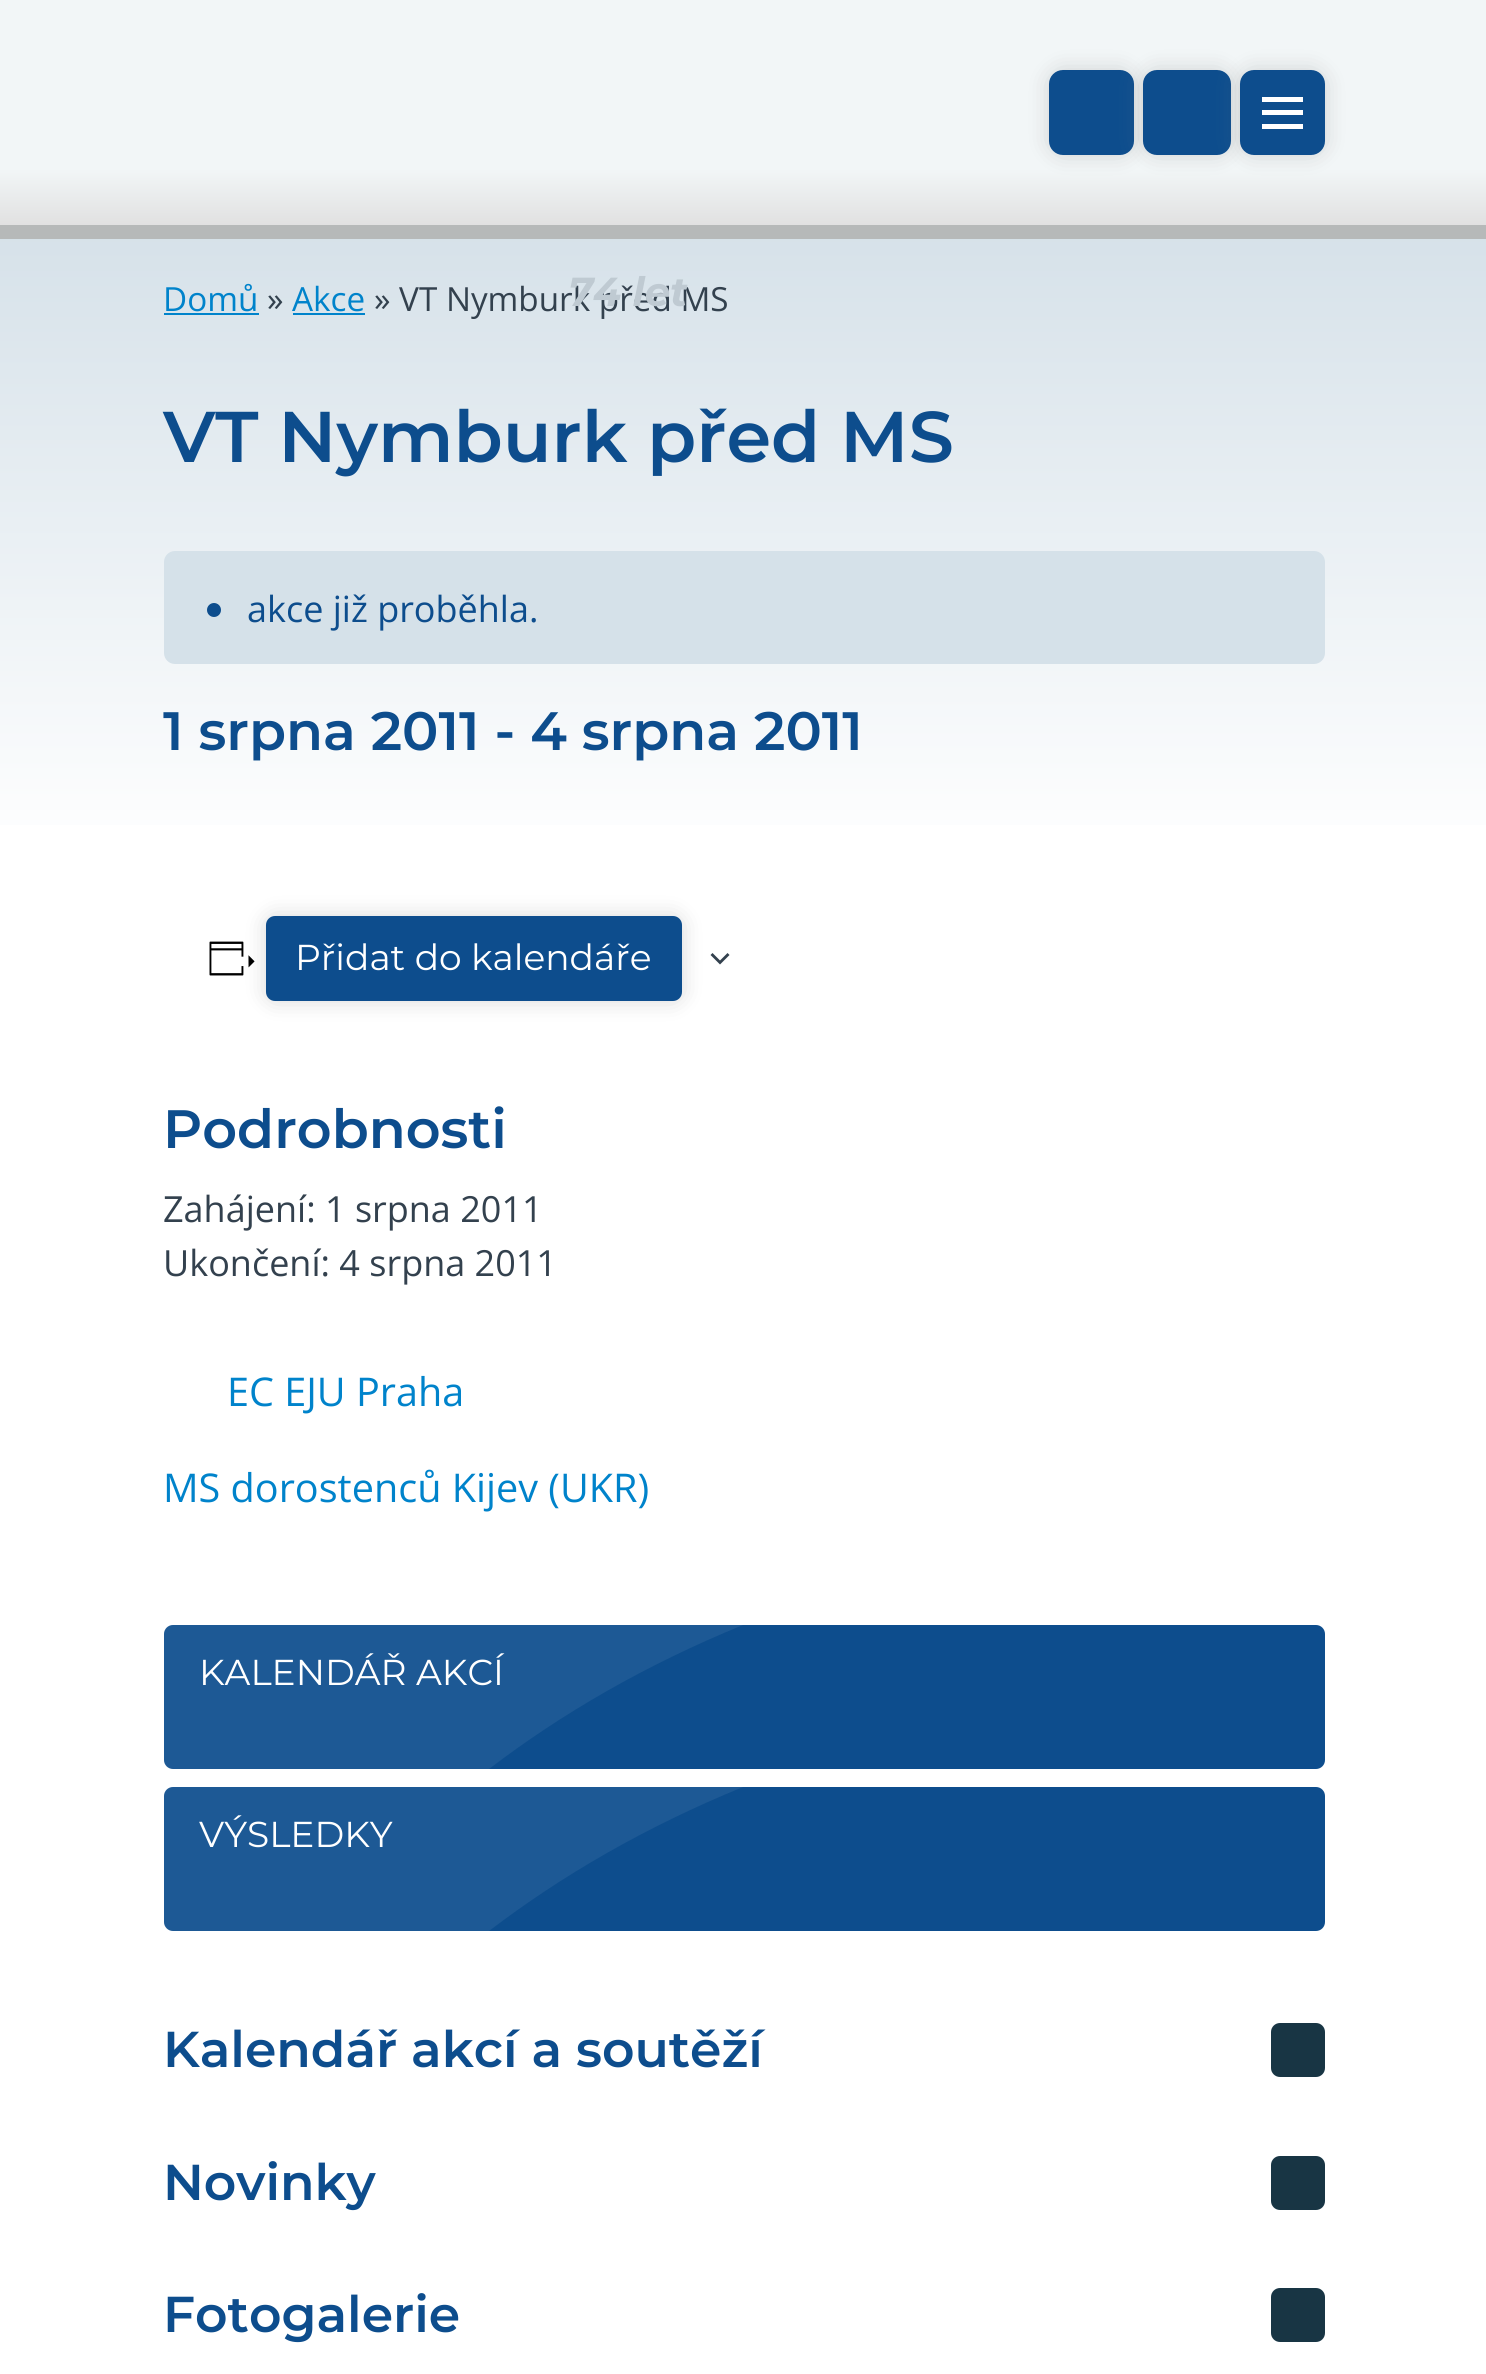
#include <cairo/cairo.h>
#include <math.h>
#include <stddef.h>

static cairo_t *cr;

static void use_color(int r, int g, int b) {
  cairo_set_source_rgb(cr, r / 255.0, g / 255.0, b / 255.0);
}

static void text(double x, double y, const char *s, const char *family, double size, int italic, int bold, int r, int g, int b) {
  cairo_select_font_face(cr, family, italic ? CAIRO_FONT_SLANT_ITALIC : CAIRO_FONT_SLANT_NORMAL,
    bold ? CAIRO_FONT_WEIGHT_BOLD : CAIRO_FONT_WEIGHT_NORMAL);
  cairo_set_font_size(cr, size);
  use_color(r, g, b);
  cairo_move_to(cr, x, y);
  cairo_show_text(cr, s);
}

static void box(double x, double y, double w, double h, int r, int g, int b) {
  use_color(r, g, b);
  cairo_rectangle(cr, x, y, w, h);
  cairo_fill(cr);
}

static void round_rect(double x, double y, double w, double h, double r) {
  cairo_new_sub_path(cr);
  cairo_arc(cr, x + w - r, y + h - r, r, 0, M_PI / 2);
  cairo_arc(cr, x + r, y + h - r, r, M_PI / 2, M_PI);
  cairo_arc(cr, x + r, y + r, r, M_PI, 1.5 * M_PI);
  cairo_arc(cr, x + w - r, y + r, r, 1.5 * M_PI, 2 * M_PI);
  cairo_close_path(cr);
}

static void shadow(double x, double y, double w, double h, double r, double blur, double alpha) {
  cairo_push_group_with_content(cr, CAIRO_CONTENT_ALPHA);
  cairo_set_operator(cr, CAIRO_OPERATOR_SOURCE);
  for (int i = 15; i >= -15 && fmin(w, h) + blur * i / 3 > 0; i -= 2) {
    double e = blur * i / 6;
    cairo_set_source_rgba(cr, 0, 0, 0, alpha * erfc((i - 1) / 8.5) / 2);
    round_rect(x - e, y - e, w + 2 * e, h + 2 * e, fmax(0, fmin(r + e + blur * .6, fmin(w, h) / 2 + e)));
    cairo_fill(cr);
  }
  cairo_pattern_t *soft = cairo_pop_group(cr);
  cairo_mask(cr, soft);
  cairo_pattern_destroy(soft);
}

static void picture(const char *path, double x, double y, double w, double h) {
  cairo_surface_t *image = cairo_image_surface_create_from_png(path);
  cairo_save(cr);
  cairo_set_source_surface(cr, image, x, y);
  cairo_rectangle(cr, x, y, w, h);
  cairo_fill(cr);
  cairo_restore(cr);
  cairo_surface_destroy(image);
}

static void draw(void) {
  cairo_pattern_t *gradient;
  use_color(255, 255, 255);
  cairo_paint(cr);
  gradient = cairo_pattern_create_linear(744, 0, 744, 225);
  cairo_pattern_add_color_stop_rgba(gradient, 0, 0.949, 0.965, 0.969, 1);
  cairo_pattern_add_color_stop_rgba(gradient, 0.75, 0.949, 0.965, 0.969, 1);
  cairo_pattern_add_color_stop_rgba(gradient, 1, 0.882, 0.882, 0.882, 1);
  cairo_set_source(cr, gradient);
  cairo_pattern_destroy(gradient);
  cairo_rectangle(cr, 0, 0, 1486, 225);
  cairo_fill(cr);
  box(0, 225, 1486, 14, 182, 185, 185);
  use_color(128, 128, 128);
  shadow(1049, 70, 85, 85, 14, 11, 0.3);
  use_color(13, 77, 141);
  round_rect(1050, 71, 83, 83, 13);
  cairo_fill_preserve(cr);
  cairo_stroke(cr);
  use_color(128, 128, 128);
  shadow(1143, 70, 88, 85, 14, 11, 0.3);
  use_color(13, 77, 141);
  round_rect(1144, 71, 86, 83, 13);
  cairo_fill_preserve(cr);
  cairo_stroke(cr);
  use_color(128, 128, 128);
  shadow(1240, 70, 85, 85, 14, 11, 0.3);
  use_color(13, 77, 141);
  round_rect(1241, 71, 83, 83, 13);
  cairo_fill_preserve(cr);
  cairo_stroke(cr);
  box(1262, 110, 41, 5, 255, 255, 255);
  box(1262, 97, 41, 5, 255, 255, 255);
  box(1262, 124, 41, 5, 255, 255, 255);
  gradient = cairo_pattern_create_linear(744, 200, 744, 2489);
  cairo_pattern_add_color_stop_rgba(gradient, 0, 0.831, 0.878, 0.91, 1);
  cairo_pattern_add_color_stop_rgba(gradient, 0.29, 1, 1, 1, 1);
  cairo_set_source(cr, gradient);
  cairo_pattern_destroy(gradient);
  cairo_rectangle(cr, 0, 239, 1486, 586);
  cairo_fill(cr);
  box(164, 313, 95, 2, 0, 131, 203);
  box(293, 313, 72, 2, 0, 131, 203);
  use_color(213, 225, 233);
  round_rect(165, 552, 1159, 111, 10);
  cairo_fill_preserve(cr);
  cairo_stroke(cr);
  use_color(13, 77, 141);
  cairo_arc(cr, 214, 610, 7, 0, 2 * M_PI);
  cairo_fill(cr);
  use_color(128, 128, 128);
  shadow(266, 916, 416, 85, 9, 11, 0.3);
  picture("img_01.png", 209, 941, 46, 35);
  use_color(13, 77, 141);
  round_rect(267, 917, 414, 83, 8);
  cairo_fill_preserve(cr);
  cairo_stroke(cr);
  use_color(51, 65, 78);
  cairo_set_fill_rule(cr, CAIRO_FILL_RULE_EVEN_ODD);
  cairo_new_path(cr);
  cairo_move_to(cr, 712.5, 953);
  cairo_line_to(cr, 720, 960.5);
  cairo_line_to(cr, 727.5, 953);
  cairo_line_to(cr, 729.5, 955);
  cairo_line_to(cr, 720, 964.5);
  cairo_line_to(cr, 710.5, 955);
  cairo_close_path(cr);
  cairo_fill(cr);
  use_color(13, 77, 141);
  round_rect(164, 1625, 1161, 144, 9);
  cairo_fill(cr);
  cairo_set_source_rgba(cr, 1, 1, 1, 0.07);
  cairo_set_fill_rule(cr, CAIRO_FILL_RULE_WINDING);
  cairo_new_path(cr);
  cairo_move_to(cr, 173, 1625);
  cairo_curve_to(cr, 168, 1625, 164, 1629, 164, 1634);
  cairo_line_to(cr, 164, 1760);
  cairo_curve_to(cr, 164, 1765, 168, 1769, 173, 1769);
  cairo_line_to(cr, 489, 1769);
  cairo_curve_to(cr, 561, 1714, 645, 1665, 743, 1625);
  cairo_close_path(cr);
  cairo_fill(cr);
  use_color(13, 77, 141);
  round_rect(164, 1787, 1161, 144, 9);
  cairo_fill(cr);
  cairo_set_source_rgba(cr, 1, 1, 1, 0.07);
  cairo_new_path(cr);
  cairo_move_to(cr, 173, 1787);
  cairo_curve_to(cr, 168, 1787, 164, 1791, 164, 1796);
  cairo_line_to(cr, 164, 1922);
  cairo_curve_to(cr, 164, 1927, 168, 1931, 173, 1931);
  cairo_line_to(cr, 489, 1931);
  cairo_curve_to(cr, 561, 1876, 645, 1827, 743, 1787);
  cairo_close_path(cr);
  cairo_fill(cr);
  use_color(24, 53, 68);
  round_rect(1271, 2023, 54, 54, 9);
  cairo_fill(cr);
  round_rect(1271, 2156, 54, 54, 9);
  cairo_fill(cr);
  round_rect(1271, 2288, 54, 54, 9);
  cairo_fill(cr);
  text(163, 311, "Domů", "Open Sans", 33.25, 0, 0, 0, 131, 203);
  text(267, 311, "»", "Open Sans", 33.25, 0, 0, 51, 65, 78);
  text(292, 311, "Akce", "Open Sans", 33.25, 0, 0, 0, 131, 203);
  text(374, 311, "» VT Nymburk před MS", "Open Sans", 33.25, 0, 0, 51, 65, 78);
  text(568, 306, "74 let", "Montserrat Thin", 40.5, 1, 0, 191, 202, 210);
  text(163, 462, "VT Nymburk před MS", "Montserrat SemiBold", 71.75, 0, 0, 13, 77, 141);
  text(247, 622, "akce již proběhla.", "Open Sans", 36, 0, 0, 13, 77, 141);
  text(163, 750, "1 srpna 2011 - 4 srpna 2011", "Montserrat SemiBold", 54, 0, 0, 13, 77, 141);
  text(295, 970, "Přidat do kalendáře", "Montserrat", 36, 0, 0, 255, 255, 255);
  text(163, 1148, "Podrobnosti", "Montserrat SemiBold", 54, 0, 0, 13, 77, 141);
  text(163, 1222, "Zahájení: 1 srpna 2011", "Open Sans", 36, 0, 0, 51, 65, 78);
  text(163, 1276, "Ukončení: 4 srpna 2011", "Open Sans", 36, 0, 0, 51, 65, 78);
  text(227, 1406, "EC EJU Praha", "Open Sans", 39.6, 0, 0, 0, 131, 203);
  text(163, 1502, "MS dorostenců Kijev (UKR)", "Open Sans", 39.6, 0, 0, 0, 131, 203);
  text(199, 1685, "KALENDÁŘ AKCÍ", "Montserrat", 36, 0, 0, 255, 255, 255);
  text(199, 1847, "VÝSLEDKY", "Montserrat", 36, 0, 0, 255, 255, 255);
  text(163, 2067, "Kalendář akcí a soutěží", "Montserrat SemiBold", 50.4, 0, 0, 13, 77, 141);
  text(163, 2200, "Novinky", "Montserrat SemiBold", 50.4, 0, 0, 13, 77, 141);
  text(163, 2332, "Fotogalerie", "Montserrat SemiBold", 50.4, 0, 0, 13, 77, 141);
}

int main(void) {
  cairo_surface_t *surface = cairo_image_surface_create(CAIRO_FORMAT_RGB24, 1486, 2374);
  cr = cairo_create(surface);
  cairo_font_options_t *options = cairo_font_options_create();
  cairo_font_options_set_hint_metrics(options, CAIRO_HINT_METRICS_OFF);
  cairo_font_options_set_hint_style(options, CAIRO_HINT_STYLE_NONE);
  cairo_set_font_options(cr, options);
  cairo_set_miter_limit(cr, 4);
  draw();
  cairo_surface_write_to_png(surface, "out.png");
  cairo_font_options_destroy(options);
  cairo_destroy(cr);
  cairo_surface_destroy(surface);
  return 0;
}
